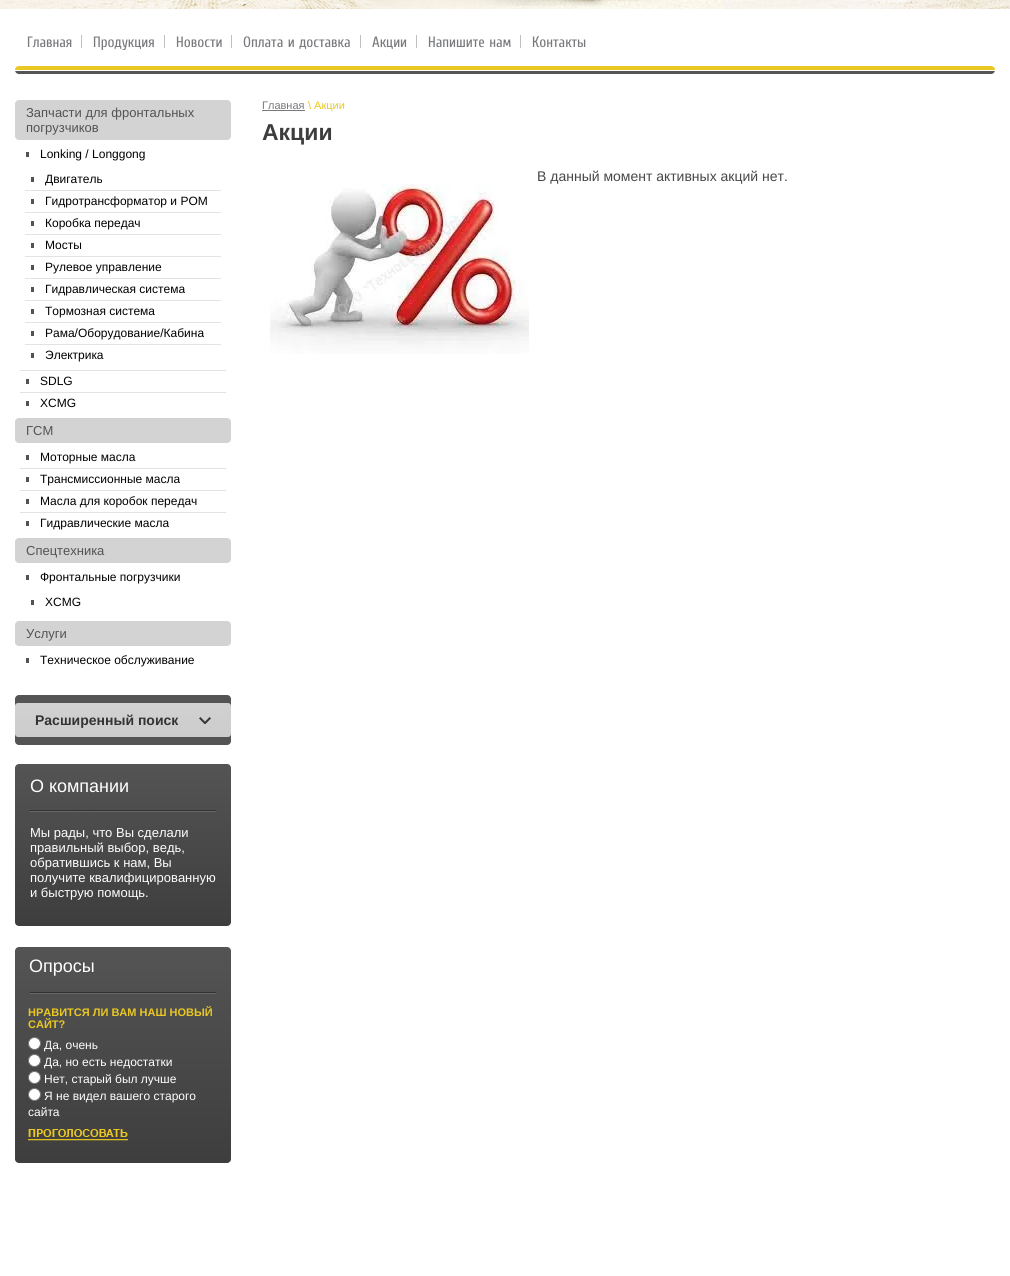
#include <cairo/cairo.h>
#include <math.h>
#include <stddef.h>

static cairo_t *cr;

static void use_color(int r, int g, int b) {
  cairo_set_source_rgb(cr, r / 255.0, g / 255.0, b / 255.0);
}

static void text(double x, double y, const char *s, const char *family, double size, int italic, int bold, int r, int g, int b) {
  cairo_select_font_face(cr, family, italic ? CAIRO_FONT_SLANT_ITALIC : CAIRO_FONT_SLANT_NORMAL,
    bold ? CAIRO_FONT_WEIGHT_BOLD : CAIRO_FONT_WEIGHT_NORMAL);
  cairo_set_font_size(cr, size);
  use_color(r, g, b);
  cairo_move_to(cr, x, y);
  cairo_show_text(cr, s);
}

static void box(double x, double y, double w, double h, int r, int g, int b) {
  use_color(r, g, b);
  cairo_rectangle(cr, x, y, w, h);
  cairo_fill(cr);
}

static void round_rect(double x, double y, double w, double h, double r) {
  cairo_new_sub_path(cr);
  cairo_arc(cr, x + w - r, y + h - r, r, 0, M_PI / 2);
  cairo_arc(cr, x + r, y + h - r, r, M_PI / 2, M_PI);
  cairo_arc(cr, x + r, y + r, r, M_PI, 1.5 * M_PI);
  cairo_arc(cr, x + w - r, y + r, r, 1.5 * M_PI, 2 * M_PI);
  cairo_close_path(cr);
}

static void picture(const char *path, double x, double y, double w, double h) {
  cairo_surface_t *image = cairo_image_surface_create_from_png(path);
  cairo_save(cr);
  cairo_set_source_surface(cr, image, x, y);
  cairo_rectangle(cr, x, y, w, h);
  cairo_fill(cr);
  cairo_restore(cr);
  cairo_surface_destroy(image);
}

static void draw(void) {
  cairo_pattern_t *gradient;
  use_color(255, 255, 255);
  cairo_paint(cr);
  picture("img_01.png", 0, 0, 1010, 9);
  box(81, 35, 1, 13, 192, 193, 195);
  box(164, 35, 1, 13, 192, 193, 195);
  box(231, 35, 1, 13, 192, 193, 195);
  box(360, 35, 1, 13, 192, 193, 195);
  box(416, 35, 1, 13, 192, 193, 195);
  box(520, 35, 1, 13, 192, 193, 195);
  picture("img_02.png", 15, 66, 6, 8);
  picture("img_03.png", 21, 66, 968, 8);
  picture("img_04.png", 989, 66, 6, 8);
  use_color(211, 211, 211);
  round_rect(15, 100, 216, 40, 4);
  cairo_fill(cr);
  box(26, 152, 3, 5, 83, 83, 83);
  box(31, 177, 3, 5, 83, 83, 83);
  box(25, 190, 196, 1, 227, 227, 227);
  box(31, 199, 3, 5, 83, 83, 83);
  box(25, 212, 196, 1, 227, 227, 227);
  box(31, 221, 3, 5, 83, 83, 83);
  box(25, 234, 196, 1, 227, 227, 227);
  box(31, 243, 3, 5, 83, 83, 83);
  box(25, 256, 196, 1, 227, 227, 227);
  box(31, 265, 3, 5, 83, 83, 83);
  box(25, 278, 196, 1, 227, 227, 227);
  box(31, 287, 3, 5, 83, 83, 83);
  box(25, 300, 196, 1, 227, 227, 227);
  box(31, 309, 3, 5, 83, 83, 83);
  box(25, 322, 196, 1, 227, 227, 227);
  box(31, 331, 3, 5, 83, 83, 83);
  box(25, 344, 196, 1, 227, 227, 227);
  box(31, 353, 3, 5, 83, 83, 83);
  box(20, 370, 206, 1, 227, 227, 227);
  box(26, 379, 3, 5, 83, 83, 83);
  box(20, 392, 206, 1, 227, 227, 227);
  box(26, 401, 3, 5, 83, 83, 83);
  use_color(211, 211, 211);
  round_rect(15, 418, 216, 25, 4);
  cairo_fill(cr);
  box(26, 455, 3, 5, 83, 83, 83);
  box(20, 468, 206, 1, 227, 227, 227);
  box(26, 477, 3, 5, 83, 83, 83);
  box(20, 490, 206, 1, 227, 227, 227);
  box(26, 499, 3, 5, 83, 83, 83);
  box(20, 512, 206, 1, 227, 227, 227);
  box(26, 521, 3, 5, 83, 83, 83);
  use_color(211, 211, 211);
  round_rect(15, 538, 216, 25, 4);
  cairo_fill(cr);
  box(26, 575, 3, 5, 83, 83, 83);
  box(31, 600, 3, 5, 83, 83, 83);
  use_color(211, 211, 211);
  round_rect(15, 621, 216, 25, 4);
  cairo_fill(cr);
  box(26, 658, 3, 5, 83, 83, 83);
  use_color(84, 84, 84);
  round_rect(15, 695, 216, 50, 4);
  cairo_fill(cr);
  gradient = cairo_pattern_create_linear(123, 703, 123, 737);
  cairo_pattern_add_color_stop_rgba(gradient, 0, 0.82, 0.82, 0.82, 1);
  cairo_pattern_add_color_stop_rgba(gradient, 1, 0.8, 0.8, 0.8, 1);
  cairo_set_source(cr, gradient);
  cairo_pattern_destroy(gradient);
  round_rect(15, 703, 216, 34, 3);
  cairo_fill(cr);
  picture("img_05.png", 199, 717, 12, 7);
  gradient = cairo_pattern_create_linear(123, 764, 123, 926);
  cairo_pattern_add_color_stop_rgba(gradient, 0, 0.329, 0.329, 0.329, 1);
  cairo_pattern_add_color_stop_rgba(gradient, 1, 0.243, 0.243, 0.243, 1);
  cairo_set_source(cr, gradient);
  cairo_pattern_destroy(gradient);
  round_rect(15, 764, 216, 162, 4);
  cairo_fill(cr);
  picture("img_06.png", 30, 810, 186, 2);
  gradient = cairo_pattern_create_linear(123, 947, 123, 1163);
  cairo_pattern_add_color_stop_rgba(gradient, 0, 0.329, 0.329, 0.329, 1);
  cairo_pattern_add_color_stop_rgba(gradient, 1, 0.243, 0.243, 0.243, 1);
  cairo_set_source(cr, gradient);
  cairo_pattern_destroy(gradient);
  round_rect(15, 947, 216, 216, 4);
  cairo_fill(cr);
  picture("img_06.png", 30, 992, 186, 2);
  use_color(255, 255, 255);
  cairo_arc(cr, 34.5, 1043.5, 6, 0, 2 * M_PI);
  cairo_fill_preserve(cr);
  use_color(118, 118, 118);
  cairo_set_line_width(cr, 1);
  cairo_stroke(cr);
  use_color(255, 255, 255);
  cairo_arc(cr, 34.5, 1060.5, 6, 0, 2 * M_PI);
  cairo_fill_preserve(cr);
  use_color(118, 118, 118);
  cairo_stroke(cr);
  use_color(255, 255, 255);
  cairo_arc(cr, 34.5, 1077.5, 6, 0, 2 * M_PI);
  cairo_fill_preserve(cr);
  use_color(118, 118, 118);
  cairo_stroke(cr);
  use_color(255, 255, 255);
  cairo_arc(cr, 34.5, 1094.5, 6, 0, 2 * M_PI);
  cairo_fill_preserve(cr);
  use_color(118, 118, 118);
  cairo_stroke(cr);
  picture("img_07.png", 28, 1129, 100, 12);
  box(262, 110, 43, 1, 120, 121, 124);
  picture("img_08.png", 270, 184, 259, 170);
  text(27, 47, "Главная", "Cuprum", 15, 0, 0, 120, 121, 124);
  text(93, 47, "Продукция", "Cuprum", 15, 0, 0, 120, 121, 124);
  text(176, 47, "Новости", "Cuprum", 15, 0, 0, 120, 121, 124);
  text(243, 47, "Оплата и доставка", "Cuprum", 15, 0, 0, 120, 121, 124);
  text(372, 47, "Акции", "Cuprum", 15, 0, 0, 120, 121, 124);
  text(428, 47, "Напишите нам", "Cuprum", 15, 0, 0, 120, 121, 124);
  text(532, 47, "Контакты", "Cuprum", 15, 0, 0, 120, 121, 124);
  text(26, 117, "Запчасти для фронтальных", "Liberation Sans", 13, 0, 0, 83, 83, 83);
  text(26, 132, "погрузчиков", "Liberation Sans", 13, 0, 0, 83, 83, 83);
  text(40, 158, "Lonking / Longgong", "Liberation Sans", 12, 0, 0, 0, 0, 0);
  text(45, 183, "Двигатель", "Liberation Sans", 12, 0, 0, 0, 0, 0);
  text(45, 205, "Гидротрансформатор и РОМ", "Liberation Sans", 12, 0, 0, 0, 0, 0);
  text(45, 227, "Коробка передач", "Liberation Sans", 12, 0, 0, 0, 0, 0);
  text(45, 249, "Мосты", "Liberation Sans", 12, 0, 0, 0, 0, 0);
  text(45, 271, "Рулевое управление", "Liberation Sans", 12, 0, 0, 0, 0, 0);
  text(45, 293, "Гидравлическая система", "Liberation Sans", 12, 0, 0, 0, 0, 0);
  text(45, 315, "Тормозная система", "Liberation Sans", 12, 0, 0, 0, 0, 0);
  text(45, 337, "Рама/Оборудование/Кабина", "Liberation Sans", 12, 0, 0, 0, 0, 0);
  text(45, 359, "Электрика", "Liberation Sans", 12, 0, 0, 0, 0, 0);
  text(40, 385, "SDLG", "Liberation Sans", 12, 0, 0, 0, 0, 0);
  text(40, 407, "XCMG", "Liberation Sans", 12, 0, 0, 0, 0, 0);
  text(26, 435, "ГСМ", "Liberation Sans", 13, 0, 0, 83, 83, 83);
  text(40, 461, "Моторные масла", "Liberation Sans", 12, 0, 0, 0, 0, 0);
  text(40, 483, "Трансмиссионные масла", "Liberation Sans", 12, 0, 0, 0, 0, 0);
  text(40, 505, "Масла для коробок передач", "Liberation Sans", 12, 0, 0, 0, 0, 0);
  text(40, 527, "Гидравлические масла", "Liberation Sans", 12, 0, 0, 0, 0, 0);
  text(26, 555, "Спецтехника", "Liberation Sans", 13, 0, 0, 83, 83, 83);
  text(40, 581, "Фронтальные погрузчики", "Liberation Sans", 12, 0, 0, 0, 0, 0);
  text(45, 606, "XCMG", "Liberation Sans", 12, 0, 0, 0, 0, 0);
  text(26, 638, "Услуги", "Liberation Sans", 13, 0, 0, 83, 83, 83);
  text(40, 664, "Техническое обслуживание", "Liberation Sans", 12, 0, 0, 0, 0, 0);
  text(35, 725, "Расширенный поиск", "Liberation Sans", 14, 0, 1, 51, 51, 51);
  text(30, 792, "О компании", "Liberation Sans", 18, 0, 0, 254, 255, 254);
  text(30, 837, "Мы рады, что Вы сделали", "Liberation Sans", 13, 0, 0, 254, 255, 254);
  text(30, 852, "правильный выбор, ведь,", "Liberation Sans", 13, 0, 0, 254, 255, 254);
  text(30, 867, "обратившись к нам, Вы", "Liberation Sans", 13, 0, 0, 254, 255, 254);
  text(30, 882, "получите квалифицированную", "Liberation Sans", 13, 0, 0, 254, 255, 254);
  text(30, 897, "и быструю помощь.", "Liberation Sans", 13, 0, 0, 254, 255, 254);
  text(29, 972, "Опросы", "Liberation Sans", 18, 0, 0, 254, 255, 254);
  text(28, 1016, "НРАВИТСЯ ЛИ ВАМ НАШ НОВЫЙ", "Liberation Sans", 11, 0, 1, 234, 199, 33);
  text(28, 1028, "САЙТ?", "Liberation Sans", 11, 0, 1, 234, 199, 33);
  text(44, 1049, "Да, очень", "Liberation Sans", 12, 0, 0, 254, 255, 254);
  text(44, 1066, "Да, но есть недостатки", "Liberation Sans", 12, 0, 0, 254, 255, 254);
  text(44, 1083, "Нет, старый был лучше", "Liberation Sans", 12, 0, 0, 254, 255, 254);
  text(44, 1100, "Я не видел вашего старого", "Liberation Sans", 12, 0, 0, 254, 255, 254);
  text(28, 1116, "сайта", "Liberation Sans", 12, 0, 0, 254, 255, 254);
  text(262, 109, "Главная", "Liberation Sans", 11, 0, 0, 120, 121, 124);
  text(308, 109, "\\ Акции", "Liberation Sans", 11, 0, 0, 234, 199, 33);
  text(262, 140, "Акции", "Liberation Sans", 23, 0, 1, 61, 61, 61);
  text(537, 181, "В данный момент активных акций нет.", "Liberation Sans", 14, 0, 0, 71, 71, 71);
}

int main(void) {
  cairo_surface_t *surface = cairo_image_surface_create(CAIRO_FORMAT_RGB24, 1010, 1276);
  cr = cairo_create(surface);
  cairo_font_options_t *options = cairo_font_options_create();
  cairo_font_options_set_hint_metrics(options, CAIRO_HINT_METRICS_OFF);
  cairo_font_options_set_hint_style(options, CAIRO_HINT_STYLE_NONE);
  cairo_set_font_options(cr, options);
  cairo_set_miter_limit(cr, 4);
  draw();
  cairo_surface_write_to_png(surface, "out.png");
  cairo_font_options_destroy(options);
  cairo_destroy(cr);
  cairo_surface_destroy(surface);
  return 0;
}
